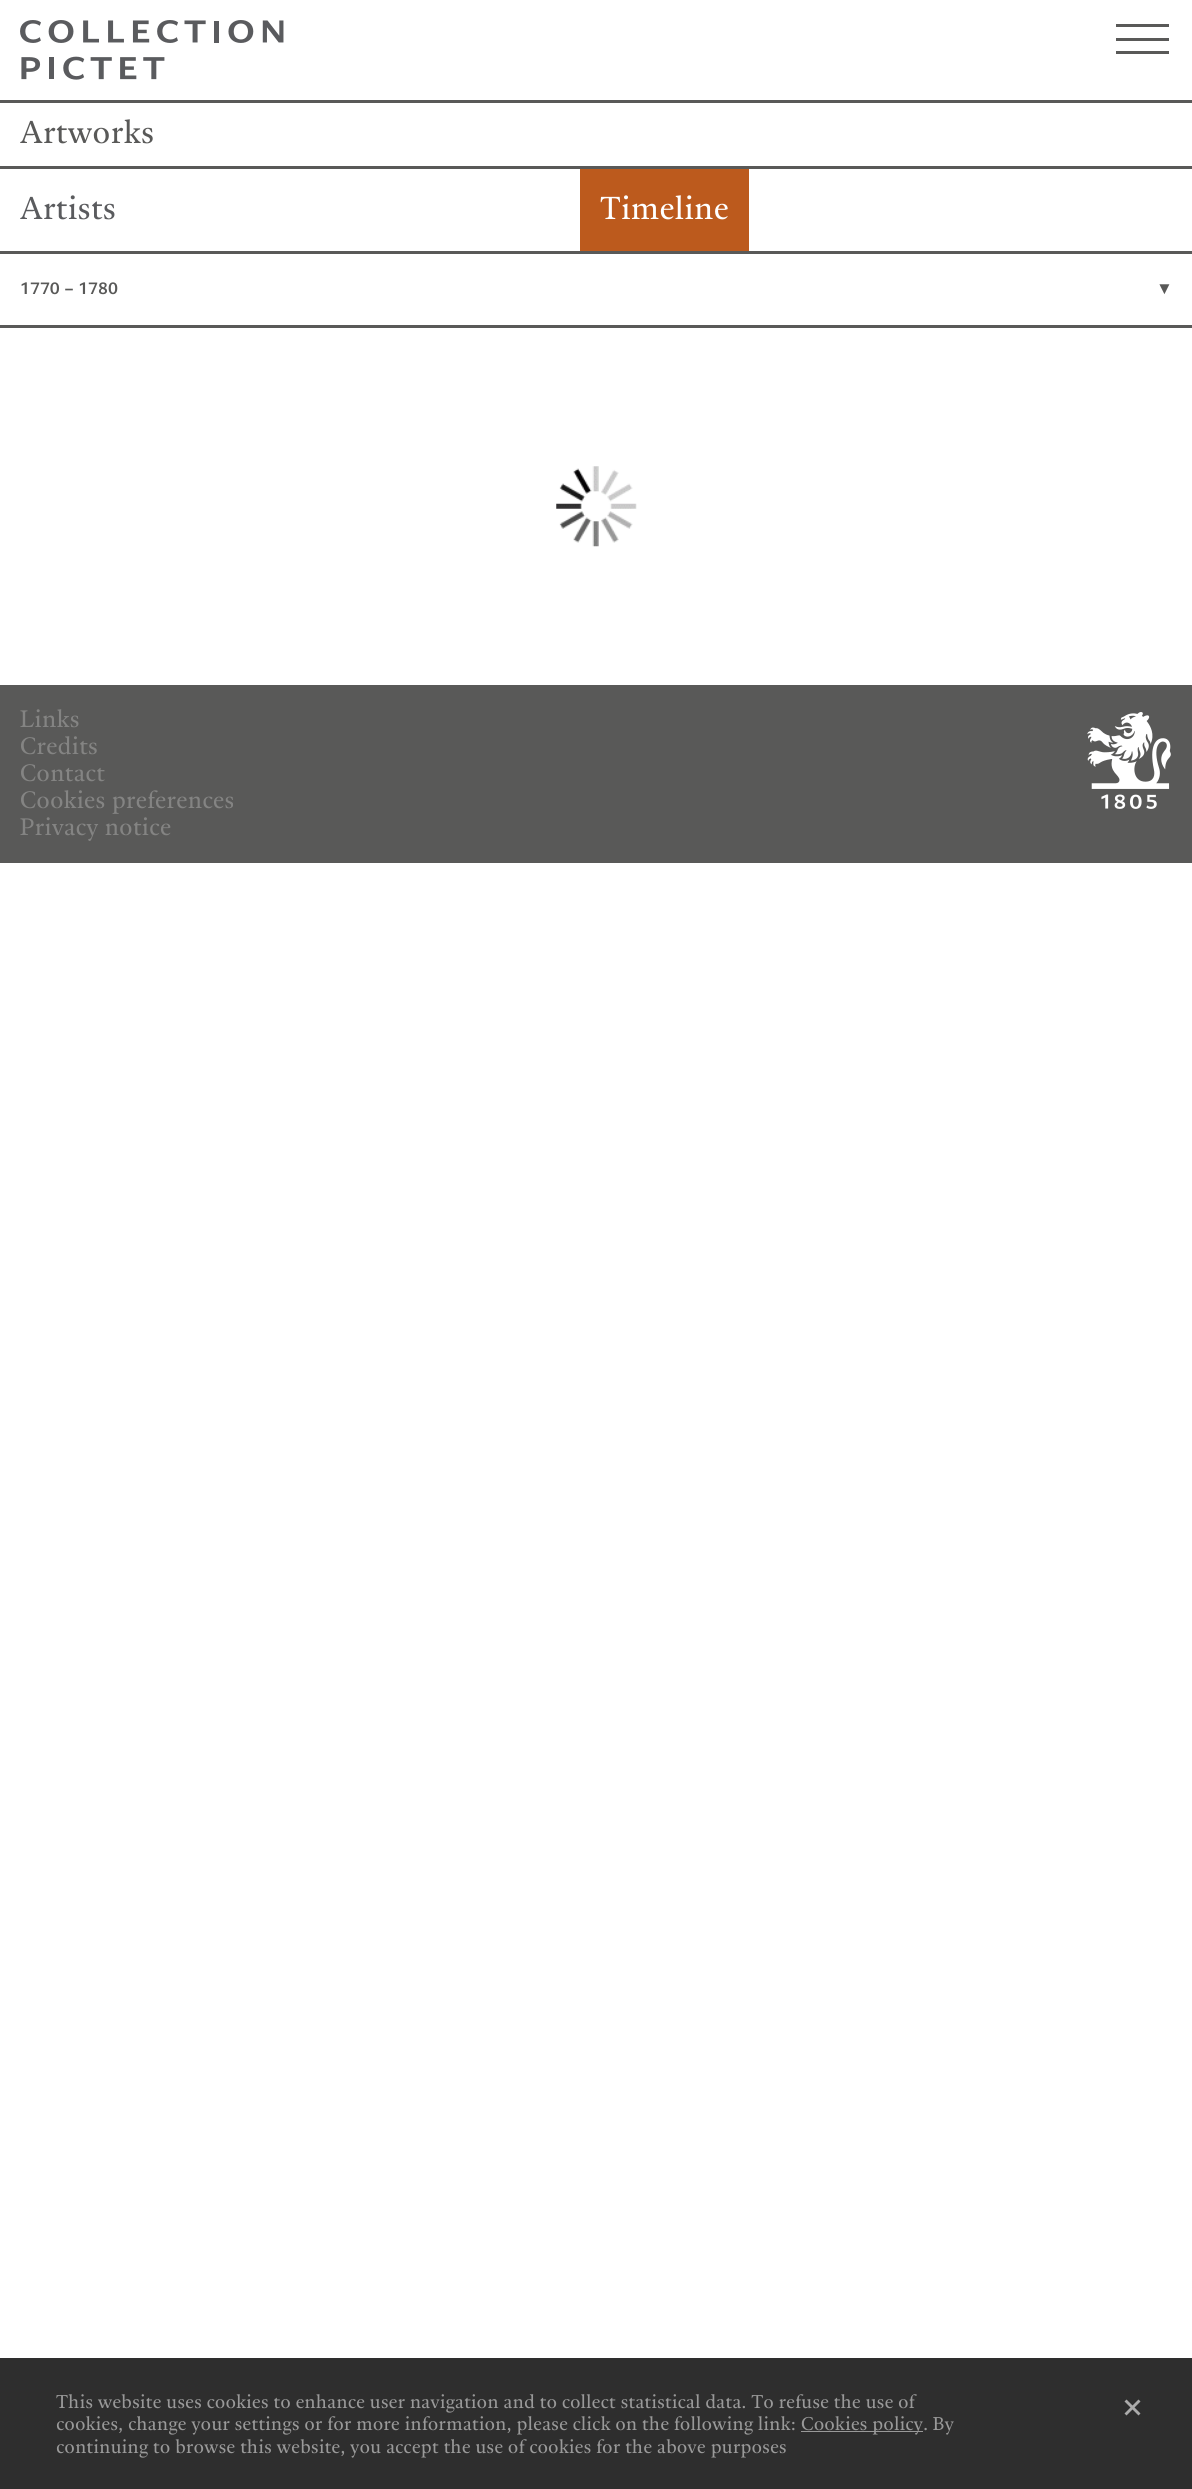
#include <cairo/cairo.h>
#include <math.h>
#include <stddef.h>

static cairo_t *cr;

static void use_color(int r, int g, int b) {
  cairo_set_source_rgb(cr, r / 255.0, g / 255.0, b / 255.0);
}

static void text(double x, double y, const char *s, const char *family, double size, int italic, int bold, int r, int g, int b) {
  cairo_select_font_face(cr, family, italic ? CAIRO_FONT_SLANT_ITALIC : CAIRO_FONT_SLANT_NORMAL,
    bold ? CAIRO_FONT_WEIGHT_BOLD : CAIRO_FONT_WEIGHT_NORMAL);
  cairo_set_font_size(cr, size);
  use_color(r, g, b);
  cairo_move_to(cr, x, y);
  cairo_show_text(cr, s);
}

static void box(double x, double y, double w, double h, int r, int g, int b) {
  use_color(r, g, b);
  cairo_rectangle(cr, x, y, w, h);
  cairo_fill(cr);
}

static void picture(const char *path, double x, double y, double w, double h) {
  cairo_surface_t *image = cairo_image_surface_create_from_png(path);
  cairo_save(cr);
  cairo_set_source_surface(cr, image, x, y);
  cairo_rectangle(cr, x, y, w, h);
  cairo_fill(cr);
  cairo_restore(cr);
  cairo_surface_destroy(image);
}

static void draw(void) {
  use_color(255, 255, 255);
  cairo_paint(cr);
  picture("img_01.png", 20, 20, 264, 60);
  box(1116, 24, 53, 3, 89, 89, 88);
  box(1116, 38, 53, 3, 89, 89, 88);
  box(1116, 51, 53, 3, 89, 89, 88);
  box(0, 100, 1192, 3, 89, 89, 88);
  box(0, 166, 1192, 3, 89, 89, 88);
  box(580, 169, 169, 82, 188, 90, 29);
  box(0, 251, 1192, 3, 89, 89, 88);
  box(0, 325, 1192, 3, 89, 89, 88);
  picture("img_02.png", 556, 466, 81, 81);
  box(0, 685, 1192, 178, 89, 89, 88);
  picture("img_03.png", 1087, 712, 84, 97);
  box(0, 2358, 1192, 131, 46, 46, 46);
  box(801, 2431, 122, 1, 153, 153, 153);
  use_color(171, 171, 171);
  cairo_new_path(cr);
  cairo_move_to(cr, 1138.5, 2399.5);
  cairo_line_to(cr, 1140.5, 2401.5);
  cairo_line_to(cr, 1126.5, 2415.5);
  cairo_line_to(cr, 1124.5, 2413.5);
  cairo_close_path(cr);
  cairo_fill(cr);
  cairo_new_path(cr);
  cairo_move_to(cr, 1124.5, 2401.5);
  cairo_line_to(cr, 1126.5, 2399.5);
  cairo_line_to(cr, 1140.5, 2413.5);
  cairo_line_to(cr, 1138.5, 2415.5);
  cairo_close_path(cr);
  cairo_fill(cr);
  text(20, 143, "Artworks", "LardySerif", 30, 0, 0, 89, 89, 88);
  text(20, 219, "Artists", "LardySerif", 30, 0, 0, 90, 91, 94);
  text(600, 219, "Timeline", "LardySerif", 30, 0, 0, 255, 255, 255);
  text(20, 294, "1770 – 1780", "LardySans", 17, 0, 1, 89, 89, 88);
  text(1156, 294, "▼", "Liberation Sans", 17, 0, 1, 89, 89, 88);
  text(20, 727, "Links", "LardySerif", 22.5, 0, 0, 132, 132, 131);
  text(20, 754, "Credits", "LardySerif", 22.5, 0, 0, 132, 132, 131);
  text(20, 781, "Contact", "LardySerif", 22.5, 0, 0, 132, 132, 131);
  text(20, 808, "Cookies preferences", "LardySerif", 22.5, 0, 0, 132, 132, 131);
  text(20, 835, "Privacy notice", "LardySerif", 22.5, 0, 0, 132, 132, 131);
  text(56, 2408, "This website uses cookies to enhance user navigation and to collect statistical data. To refuse the use of", "LardySerif", 17.5, 0, 0, 153, 153, 153);
  text(56, 2430, "cookies, change your settings or for more information, please click on the following link:", "LardySerif", 17.5, 0, 0, 153, 153, 153);
  text(801, 2430, "Cookies policy. By", "LardySerif", 17.5, 0, 0, 153, 153, 153);
  text(56, 2453, "continuing to browse this website, you accept the use of cookies for the above purposes", "LardySerif", 17.5, 0, 0, 153, 153, 153);
}

int main(void) {
  cairo_surface_t *surface = cairo_image_surface_create(CAIRO_FORMAT_RGB24, 1192, 2489);
  cr = cairo_create(surface);
  cairo_font_options_t *options = cairo_font_options_create();
  cairo_font_options_set_hint_metrics(options, CAIRO_HINT_METRICS_OFF);
  cairo_font_options_set_hint_style(options, CAIRO_HINT_STYLE_NONE);
  cairo_set_font_options(cr, options);
  cairo_set_miter_limit(cr, 4);
  draw();
  cairo_surface_write_to_png(surface, "out.png");
  cairo_font_options_destroy(options);
  cairo_destroy(cr);
  cairo_surface_destroy(surface);
  return 0;
}
